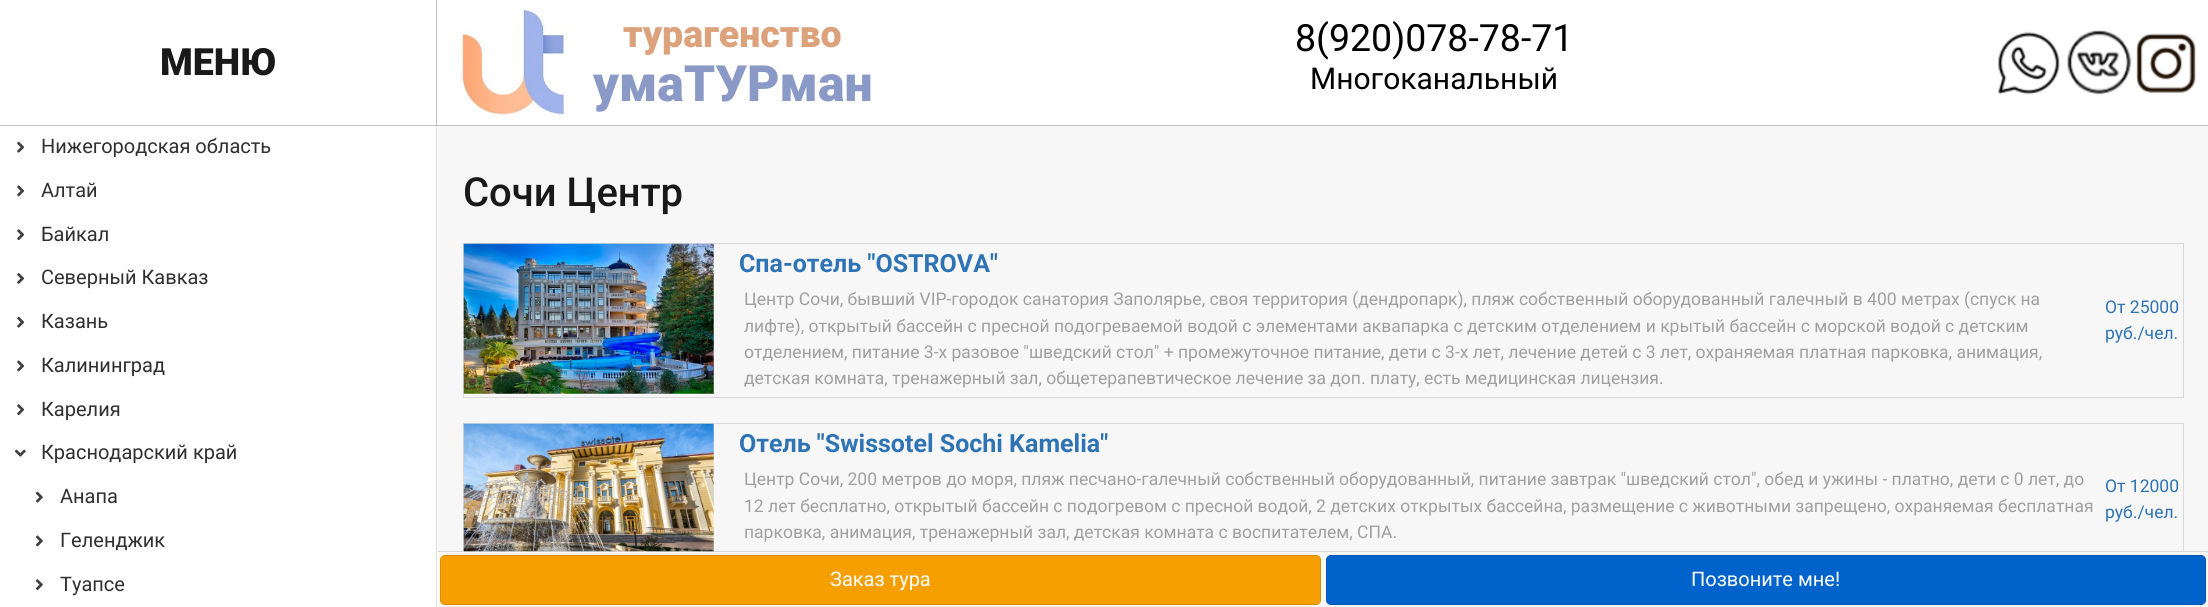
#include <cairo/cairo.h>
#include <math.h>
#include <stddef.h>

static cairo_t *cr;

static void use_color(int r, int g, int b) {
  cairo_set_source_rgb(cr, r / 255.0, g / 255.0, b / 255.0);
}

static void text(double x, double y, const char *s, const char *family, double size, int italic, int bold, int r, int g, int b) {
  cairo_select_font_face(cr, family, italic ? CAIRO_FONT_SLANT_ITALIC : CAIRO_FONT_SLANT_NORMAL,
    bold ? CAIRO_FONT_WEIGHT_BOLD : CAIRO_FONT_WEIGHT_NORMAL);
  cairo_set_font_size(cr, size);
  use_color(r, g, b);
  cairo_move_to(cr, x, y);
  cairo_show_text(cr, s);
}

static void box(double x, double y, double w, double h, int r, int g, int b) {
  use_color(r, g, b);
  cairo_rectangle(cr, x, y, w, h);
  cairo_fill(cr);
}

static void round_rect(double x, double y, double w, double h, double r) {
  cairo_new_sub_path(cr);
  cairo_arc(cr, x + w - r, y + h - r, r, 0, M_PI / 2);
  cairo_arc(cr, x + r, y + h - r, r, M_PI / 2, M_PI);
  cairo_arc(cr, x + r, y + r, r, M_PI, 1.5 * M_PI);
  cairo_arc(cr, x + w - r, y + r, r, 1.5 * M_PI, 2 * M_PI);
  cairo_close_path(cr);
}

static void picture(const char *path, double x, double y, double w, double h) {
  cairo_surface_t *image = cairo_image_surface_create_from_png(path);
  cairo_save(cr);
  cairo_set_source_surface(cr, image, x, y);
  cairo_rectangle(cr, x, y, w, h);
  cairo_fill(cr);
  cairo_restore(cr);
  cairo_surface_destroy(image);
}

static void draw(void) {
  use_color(247, 247, 247);
  cairo_paint(cr);
  box(0, 0, 2208, 125, 255, 255, 255);
  box(0, 126, 438, 481, 255, 255, 255);
  box(436, 125, 1, 482, 223, 223, 223);
  box(0, 125, 2208, 1, 193, 193, 193);
  box(436, 0, 1, 125, 193, 193, 193);
  picture("img_01.png", 461, 5, 107, 115);
  picture("img_02.png", 1998, 31, 62, 64);
  picture("img_03.png", 2067, 30, 65, 65);
  picture("img_04.png", 2136, 33, 60, 60);
  picture("img_05.png", 17, 141, 8, 12);
  picture("img_06.png", 17, 185, 8, 12);
  picture("img_07.png", 17, 229, 8, 12);
  picture("img_08.png", 17, 273, 8, 11);
  picture("img_05.png", 17, 316, 8, 12);
  picture("img_06.png", 17, 360, 8, 12);
  picture("img_07.png", 17, 404, 8, 12);
  picture("img_09.png", 14, 449, 12, 8);
  picture("img_10.png", 35, 491, 8, 12);
  picture("img_11.png", 35, 535, 8, 12);
  picture("img_12.png", 35, 579, 8, 12);
  cairo_rectangle(cr, 463.5, 243.5, 1720, 154);
  use_color(216, 216, 216);
  cairo_set_line_width(cr, 1);
  cairo_stroke(cr);
  picture("img_13.png", 463, 243, 251, 151);
  box(438, 551, 1770, 1, 216, 216, 216);
  use_color(245, 159, 0);
  round_rect(440.5, 555.5, 880, 49, 4.5);
  cairo_fill_preserve(cr);
  use_color(219, 143, 0);
  cairo_stroke(cr);
  use_color(0, 99, 204);
  round_rect(1326.5, 555.5, 879, 49, 4.5);
  cairo_fill_preserve(cr);
  use_color(0, 86, 179);
  cairo_stroke(cr);
  text(160, 75, "МЕНЮ", "Roboto Black", 37.5, 0, 0, 25, 25, 25);
  text(623, 47, "турагенство", "Roboto Black", 37.5, 0, 0, 220, 162, 124);
  text(593, 101, "умаТУРман", "Roboto Black", 50, 0, 0, 138, 153, 197);
  text(1295, 51, "8(920)078-78-71", "Roboto", 37.5, 0, 0, 0, 0, 0);
  text(1310, 89, "Многоканальный", "Roboto", 30, 0, 0, 0, 0, 0);
  text(41, 153, "Нижегородская область", "Roboto", 20, 0, 0, 48, 48, 48);
  text(41, 197, "Алтай", "Roboto", 20, 0, 0, 48, 48, 48);
  text(41, 241, "Байкал", "Roboto", 20, 0, 0, 48, 48, 48);
  text(41, 284, "Северный Кавказ", "Roboto", 20, 0, 0, 48, 48, 48);
  text(41, 328, "Казань", "Roboto", 20, 0, 0, 48, 48, 48);
  text(41, 372, "Калининград", "Roboto", 20, 0, 0, 48, 48, 48);
  text(41, 416, "Карелия", "Roboto", 20, 0, 0, 48, 48, 48);
  text(41, 459, "Краснодарский край", "Roboto", 20, 0, 0, 48, 48, 48);
  text(60, 503, "Анапа", "Roboto", 20, 0, 0, 48, 48, 48);
  text(60, 547, "Геленджик", "Roboto", 20, 0, 0, 48, 48, 48);
  text(60, 591, "Туапсе", "Roboto", 20, 0, 0, 48, 48, 48);
  text(463, 206, "Сочи Центр", "Roboto Medium", 40, 0, 0, 25, 25, 25);
  text(739, 272, "Спа-отель \"OSTROVA\"", "Roboto", 25, 0, 1, 46, 116, 181);
  text(744, 305, "Центр Сочи, бывший VIP-городок санатория Заполярье, своя территория (дендропарк), пляж собственный оборудованный галечный в 400 метрах (спуск на", "Roboto", 17.5, 0, 0, 160, 160, 160);
  text(744, 332, "лифте), открытый бассейн с пресной подогреваемой водой с элементами аквапарка с детским отделением и крытый бассейн с морской водой с детским", "Roboto", 17.5, 0, 0, 160, 160, 160);
  text(744, 358, "отделением, питание 3-х разовое \"шведский стол\" + промежуточное питание, дети с 3-х лет, лечение детей с 3 лет, охраняемая платная парковка, анимация,", "Roboto", 17.5, 0, 0, 160, 160, 160);
  text(744, 384, "детская комната, тренажерный зал, общетерапевтическое лечение за доп. плату, есть медицинская лицензия.", "Roboto", 17.5, 0, 0, 160, 160, 160);
  text(2105, 313, "От 25000", "Roboto", 17.5, 0, 0, 46, 116, 181);
  text(2105, 339, "руб./чел.", "Roboto", 17.5, 0, 0, 46, 116, 181);
  text(830, 586, "Заказ тура", "Roboto", 20, 0, 0, 255, 255, 255);
  text(1691, 586, "Позвоните мне!", "Roboto", 20, 0, 0, 255, 255, 255);
  cairo_save(cr);
  cairo_rectangle(cr, 438, 116, 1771, 435);
  cairo_clip(cr);
  cairo_rectangle(cr, 463.5, 423.5, 1720, 151);
  use_color(216, 216, 216);
  cairo_stroke(cr);
  cairo_restore(cr);
  text(744, 538, "парковка, анимация, тренажерный зал, детская комната с воспитателем, СПА.", "Roboto", 17.5, 0, 0, 160, 160, 160);
  text(744, 512, "12 лет бесплатно, открытый бассейн с подогревом с пресной водой, 2 детских открытых бассейна, размещение с животными запрещено, охраняемая бесплатная", "Roboto", 17.5, 0, 0, 160, 160, 160);
  text(744, 485, "Центр Сочи, 200 метров до моря, пляж песчано-галечный собственный оборудованный, питание завтрак \"шведский стол\", обед и ужины - платно, дети с 0 лет, до", "Roboto", 17.5, 0, 0, 160, 160, 160);
  text(2105, 518, "руб./чел.", "Roboto", 17.5, 0, 0, 46, 116, 181);
  text(2105, 492, "От 12000", "Roboto", 17.5, 0, 0, 46, 116, 181);
  text(739, 452, "Отель \"Swissotel Sochi Kamelia\"", "Roboto", 25, 0, 1, 46, 116, 181);
  picture("img_14.png", 463, 423, 251, 129);
}

int main(void) {
  cairo_surface_t *surface = cairo_image_surface_create(CAIRO_FORMAT_RGB24, 2208, 607);
  cr = cairo_create(surface);
  cairo_font_options_t *options = cairo_font_options_create();
  cairo_font_options_set_hint_metrics(options, CAIRO_HINT_METRICS_OFF);
  cairo_font_options_set_hint_style(options, CAIRO_HINT_STYLE_NONE);
  cairo_set_font_options(cr, options);
  cairo_set_miter_limit(cr, 4);
  draw();
  cairo_surface_write_to_png(surface, "out.png");
  cairo_font_options_destroy(options);
  cairo_destroy(cr);
  cairo_surface_destroy(surface);
  return 0;
}
